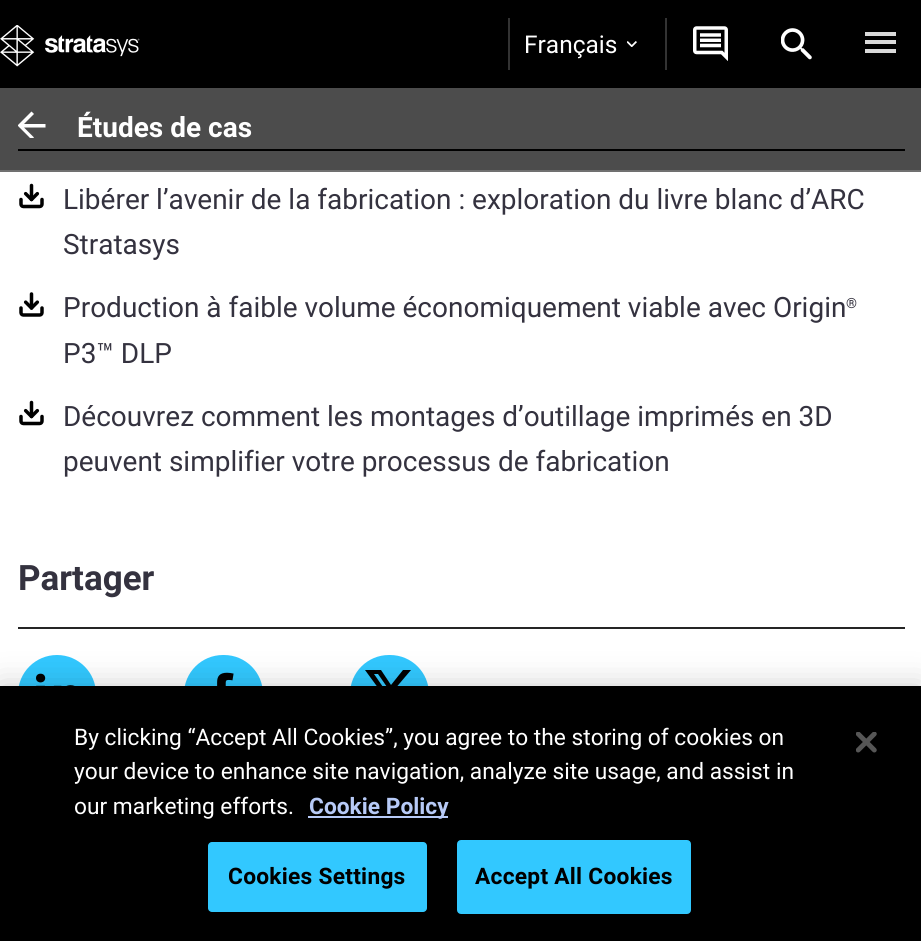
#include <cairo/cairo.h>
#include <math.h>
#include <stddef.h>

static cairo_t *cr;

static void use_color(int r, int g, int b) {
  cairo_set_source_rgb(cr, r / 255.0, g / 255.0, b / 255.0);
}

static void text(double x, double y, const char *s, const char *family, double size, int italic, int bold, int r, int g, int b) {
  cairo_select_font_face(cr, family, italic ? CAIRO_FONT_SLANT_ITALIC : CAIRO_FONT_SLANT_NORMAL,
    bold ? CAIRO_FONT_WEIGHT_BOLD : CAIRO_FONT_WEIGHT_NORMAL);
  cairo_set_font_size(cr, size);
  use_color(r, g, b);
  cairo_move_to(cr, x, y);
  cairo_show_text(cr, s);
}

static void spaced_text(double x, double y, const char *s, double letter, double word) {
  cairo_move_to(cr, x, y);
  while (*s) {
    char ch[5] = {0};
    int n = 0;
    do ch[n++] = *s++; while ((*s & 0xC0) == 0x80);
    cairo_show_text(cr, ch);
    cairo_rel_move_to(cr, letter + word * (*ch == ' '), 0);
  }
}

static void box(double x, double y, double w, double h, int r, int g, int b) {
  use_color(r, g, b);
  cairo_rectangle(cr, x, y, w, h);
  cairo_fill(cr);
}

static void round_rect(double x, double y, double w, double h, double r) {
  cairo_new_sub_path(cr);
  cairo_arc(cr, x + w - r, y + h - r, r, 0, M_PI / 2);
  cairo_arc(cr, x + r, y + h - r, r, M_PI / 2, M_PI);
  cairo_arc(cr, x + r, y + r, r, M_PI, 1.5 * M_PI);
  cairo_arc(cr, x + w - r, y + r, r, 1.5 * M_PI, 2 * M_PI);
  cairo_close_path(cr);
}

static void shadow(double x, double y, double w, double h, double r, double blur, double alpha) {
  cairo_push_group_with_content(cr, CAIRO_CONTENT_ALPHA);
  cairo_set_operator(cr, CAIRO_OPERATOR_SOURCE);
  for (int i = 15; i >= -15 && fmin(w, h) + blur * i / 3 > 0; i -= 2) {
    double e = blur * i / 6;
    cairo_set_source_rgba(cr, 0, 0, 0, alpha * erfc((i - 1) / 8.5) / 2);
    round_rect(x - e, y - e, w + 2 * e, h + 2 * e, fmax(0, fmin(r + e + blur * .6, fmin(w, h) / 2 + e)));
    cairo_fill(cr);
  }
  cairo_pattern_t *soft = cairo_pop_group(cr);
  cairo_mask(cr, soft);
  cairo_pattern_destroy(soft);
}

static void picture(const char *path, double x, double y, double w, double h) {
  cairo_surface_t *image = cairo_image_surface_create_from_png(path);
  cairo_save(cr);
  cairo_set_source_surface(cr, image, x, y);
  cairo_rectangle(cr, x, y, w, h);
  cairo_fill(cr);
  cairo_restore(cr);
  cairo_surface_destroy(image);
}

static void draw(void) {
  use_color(255, 255, 255);
  cairo_paint(cr);
  box(0, 0, 921, 88, 0, 0, 0);
  picture("img_01.png", 0, 25, 140, 42);
  box(508, 18, 2, 52, 51, 51, 51);
  picture("img_02.png", 627, 41, 10, 6);
  box(665, 18, 2, 52, 51, 51, 51);
  picture("img_03.png", 693, 26, 35, 35);
  picture("img_04.png", 781, 28, 31, 32);
  box(865, 32, 31, 4, 218, 218, 218);
  box(865, 40, 31, 4, 218, 218, 218);
  box(865, 49, 31, 4, 218, 218, 218);
  box(18, 149, 887, 2, 0, 0, 0);
  cairo_set_source_rgba(cr, 0, 0, 0, 0.7);
  cairo_rectangle(cr, 0, 88, 921, 82);
  cairo_fill(cr);
  box(0, 170, 921, 2, 112, 112, 112);
  cairo_save(cr);
  cairo_rectangle(cr, 18, 110, 28, 28);
  cairo_clip(cr);
  use_color(255, 255, 255);
  cairo_new_path(cr);
  cairo_move_to(cr, 45.5, 124);
  cairo_line_to(cr, 24, 124);
  cairo_line_to(cr, 34, 114);
  cairo_line_to(cr, 31.5, 111.5);
  cairo_line_to(cr, 17.5, 125.5);
  cairo_line_to(cr, 31.5, 139.5);
  cairo_line_to(cr, 34, 137.5);
  cairo_line_to(cr, 24, 127.5);
  cairo_line_to(cr, 45.5, 127.5);
  cairo_close_path(cr);
  cairo_fill(cr);
  cairo_restore(cr);
  picture("img_05.png", 19, 183, 25, 26);
  picture("img_06.png", 19, 292, 25, 25);
  picture("img_05.png", 19, 400, 25, 26);
  box(18, 627, 887, 2, 37, 37, 37);
  use_color(50, 200, 255);
  cairo_arc(cr, 57, 694, 39, 0, 2 * M_PI);
  cairo_fill(cr);
  picture("img_07.png", 36, 673, 39, 13);
  round_rect(184, 655, 79, 78, 39);
  cairo_fill(cr);
  picture("img_08.png", 217, 672, 17, 14);
  round_rect(350, 655, 79, 78, 39);
  cairo_fill(cr);
  use_color(0, 0, 0);
  cairo_new_path(cr);
  cairo_move_to(cr, 403, 670);
  cairo_line_to(cr, 411, 670);
  cairo_line_to(cr, 394, 690);
  cairo_line_to(cr, 413, 718);
  cairo_line_to(cr, 399, 718);
  cairo_line_to(cr, 387, 701);
  cairo_line_to(cr, 374, 718);
  cairo_line_to(cr, 366, 718);
  cairo_line_to(cr, 384, 696);
  cairo_line_to(cr, 365, 670);
  cairo_line_to(cr, 381, 670);
  cairo_line_to(cr, 391, 685);
  cairo_close_path(cr);
  cairo_move_to(cr, 401, 713);
  cairo_line_to(cr, 405, 713);
  cairo_line_to(cr, 378, 674);
  cairo_line_to(cr, 374, 674);
  cairo_close_path(cr);
  cairo_fill(cr);
  use_color(0, 0, 0);
  shadow(0, 686, 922, 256, 0, 16, 0.2);
  box(0, 686, 921, 255, 0, 0, 0);
  box(308, 816, 140, 2, 183, 202, 247);
  use_color(50, 200, 255);
  round_rect(208, 842, 219, 70, 4);
  cairo_fill(cr);
  round_rect(458, 841, 232, 72, 3);
  cairo_fill_preserve(cr);
  cairo_stroke(cr);
  picture("img_09.png", 856, 732, 21, 21);
  text(524, 53, "Français", "Roboto", 24.5, 0, 0, 255, 255, 255);
  text(77, 137, "Études de cas", "Roboto", 28, 0, 1, 255, 255, 255);
  text(63, 209, "Libérer l’avenir de la fabrication : exploration du livre blanc d’ARC", "Roboto", 28, 0, 0, 52, 50, 63);
  text(63, 254, "Stratasys", "Roboto", 28, 0, 0, 52, 50, 63);
  text(63, 317, "Production à faible volume économiquement viable avec Origin", "Roboto", 28, 0, 0, 52, 50, 63);
  text(846, 308, "®", "Roboto", 14, 0, 0, 52, 50, 63);
  text(63, 363, "P3™ DLP", "Roboto", 28, 0, 0, 52, 50, 63);
  text(63, 426, "Découvrez comment les montages d’outillage imprimés en 3D", "Roboto", 28, 0, 0, 52, 50, 63);
  text(63, 471, "peuvent simplifier votre processus de fabrication", "Roboto", 28, 0, 0, 52, 50, 63);
  text(18, 590, "Partager", "Roboto", 35, 0, 1, 52, 50, 63);
  text(74, 745, "By clicking “Accept All Cookies”, you agree to the storing of cookies on", "Roboto", 22.75, 0, 0, 255, 255, 255);
  text(74, 779, "your device to enhance site navigation, analyze site usage, and assist in", "Roboto", 22.75, 0, 0, 255, 255, 255);
  text(74, 814, "our marketing efforts.", "Roboto", 22.75, 0, 0, 255, 255, 255);
  text(309, 814, "Cookie Policy", "Roboto", 22.75, 0, 1, 183, 202, 247);
  use_color(0, 0, 0);
  spaced_text(228, 884, "Cookies Settings", 0.25, 0);
  spaced_text(475, 884, "Accept All Cookies", 0.25, 0);
}

int main(void) {
  cairo_surface_t *surface = cairo_image_surface_create(CAIRO_FORMAT_RGB24, 921, 941);
  cr = cairo_create(surface);
  cairo_font_options_t *options = cairo_font_options_create();
  cairo_font_options_set_hint_metrics(options, CAIRO_HINT_METRICS_OFF);
  cairo_font_options_set_hint_style(options, CAIRO_HINT_STYLE_NONE);
  cairo_set_font_options(cr, options);
  cairo_set_miter_limit(cr, 4);
  draw();
  cairo_surface_write_to_png(surface, "out.png");
  cairo_font_options_destroy(options);
  cairo_destroy(cr);
  cairo_surface_destroy(surface);
  return 0;
}
